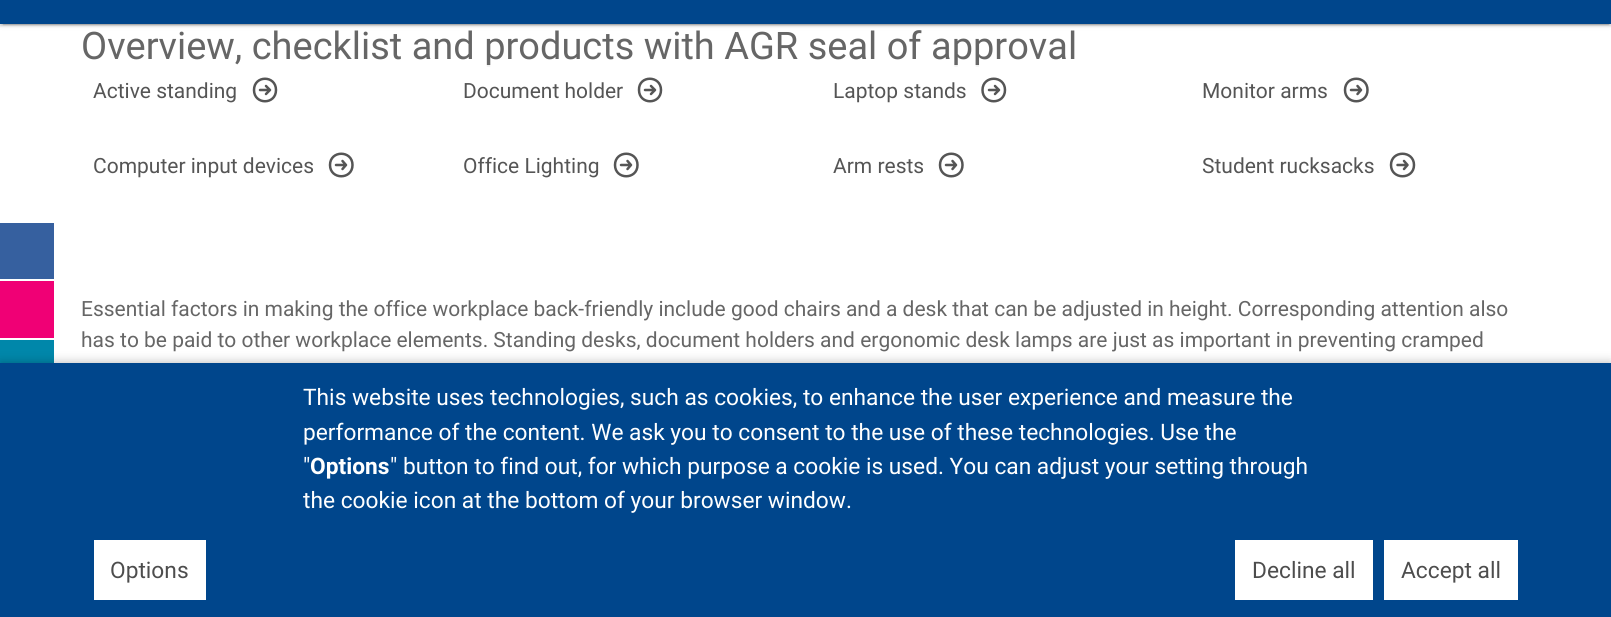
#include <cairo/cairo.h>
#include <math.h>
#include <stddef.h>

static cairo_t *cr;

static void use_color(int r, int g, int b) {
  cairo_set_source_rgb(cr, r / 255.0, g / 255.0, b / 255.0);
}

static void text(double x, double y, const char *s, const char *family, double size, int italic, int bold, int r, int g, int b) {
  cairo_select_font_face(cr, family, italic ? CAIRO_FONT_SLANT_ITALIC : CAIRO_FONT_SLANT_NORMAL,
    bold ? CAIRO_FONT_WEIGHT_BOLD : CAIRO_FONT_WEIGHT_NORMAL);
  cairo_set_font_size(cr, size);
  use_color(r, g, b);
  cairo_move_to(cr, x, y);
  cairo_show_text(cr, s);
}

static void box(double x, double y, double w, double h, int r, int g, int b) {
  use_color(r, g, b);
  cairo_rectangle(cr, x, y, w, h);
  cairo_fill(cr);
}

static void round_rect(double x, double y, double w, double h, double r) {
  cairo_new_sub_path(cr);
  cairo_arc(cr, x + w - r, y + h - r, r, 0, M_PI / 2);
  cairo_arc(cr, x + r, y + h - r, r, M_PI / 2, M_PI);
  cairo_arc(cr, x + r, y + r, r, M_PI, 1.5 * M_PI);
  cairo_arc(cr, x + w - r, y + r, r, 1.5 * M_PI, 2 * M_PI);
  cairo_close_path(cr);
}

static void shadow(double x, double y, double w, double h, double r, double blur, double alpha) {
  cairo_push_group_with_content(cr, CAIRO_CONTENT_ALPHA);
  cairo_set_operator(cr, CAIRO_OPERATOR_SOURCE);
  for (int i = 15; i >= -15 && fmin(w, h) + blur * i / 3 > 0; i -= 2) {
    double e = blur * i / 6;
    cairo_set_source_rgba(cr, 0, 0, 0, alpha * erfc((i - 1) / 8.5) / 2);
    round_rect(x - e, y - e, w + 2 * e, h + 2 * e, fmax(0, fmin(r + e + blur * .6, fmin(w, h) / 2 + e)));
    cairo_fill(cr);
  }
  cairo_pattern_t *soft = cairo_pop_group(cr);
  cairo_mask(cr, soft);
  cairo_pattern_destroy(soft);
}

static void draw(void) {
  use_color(255, 255, 255);
  cairo_paint(cr);
  use_color(0, 0, 0);
  shadow(0, -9, 1611, 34, 0, 3, 0.12);
  shadow(3, -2, 1606, 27, 0, 0.5, 0.2);
  shadow(0, -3, 1611, 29, 0, 1, 0.14);
  box(0, 0, 1611, 24, 0, 70, 140);
  box(0, 223, 54, 56, 54, 96, 159);
  box(0, 281, 54, 57, 240, 0, 117);
  box(0, 340, 54, 23, 0, 135, 170);
  cairo_new_path(cr);
  cairo_move_to(cr, 266, 86);
  cairo_line_to(cr, 270, 90);
  cairo_move_to(cr, 270, 90);
  cairo_line_to(cr, 266, 94);
  cairo_move_to(cr, 270, 90);
  cairo_line_to(cr, 260, 90);
  cairo_move_to(cr, 276, 90);
  cairo_curve_to(cr, 276, 105, 254, 105, 254, 90);
  cairo_curve_to(cr, 254, 75, 276, 75, 276, 90);
  cairo_close_path(cr);
  use_color(85, 85, 85);
  cairo_set_line_width(cr, 2.5);
  cairo_set_line_cap(cr, CAIRO_LINE_CAP_ROUND);
  cairo_set_line_join(cr, CAIRO_LINE_JOIN_ROUND);
  cairo_stroke(cr);
  cairo_new_path(cr);
  cairo_move_to(cr, 1357.5, 86);
  cairo_line_to(cr, 1361, 90);
  cairo_move_to(cr, 1361, 90);
  cairo_line_to(cr, 1357.5, 94);
  cairo_move_to(cr, 1361, 90);
  cairo_line_to(cr, 1351, 90);
  cairo_move_to(cr, 1367.5, 90);
  cairo_curve_to(cr, 1367.5, 105, 1345, 105, 1345, 90);
  cairo_curve_to(cr, 1345, 75, 1367.5, 75, 1367.5, 90);
  cairo_close_path(cr);
  cairo_stroke(cr);
  cairo_new_path(cr);
  cairo_move_to(cr, 342.5, 161);
  cairo_line_to(cr, 346, 165);
  cairo_move_to(cr, 346, 165);
  cairo_line_to(cr, 342.5, 169);
  cairo_move_to(cr, 346, 165);
  cairo_line_to(cr, 336, 165);
  cairo_move_to(cr, 352.5, 165);
  cairo_curve_to(cr, 352.5, 180, 330, 180, 330, 165);
  cairo_curve_to(cr, 330, 150, 352.5, 150, 352.5, 165);
  cairo_close_path(cr);
  cairo_stroke(cr);
  cairo_new_path(cr);
  cairo_move_to(cr, 627.5, 161);
  cairo_line_to(cr, 631, 165);
  cairo_move_to(cr, 631, 165);
  cairo_line_to(cr, 627.5, 169);
  cairo_move_to(cr, 631, 165);
  cairo_line_to(cr, 621, 165);
  cairo_move_to(cr, 637.5, 165);
  cairo_curve_to(cr, 637.5, 180, 615, 180, 615, 165);
  cairo_curve_to(cr, 615, 150, 637.5, 150, 637.5, 165);
  cairo_close_path(cr);
  cairo_stroke(cr);
  cairo_new_path(cr);
  cairo_move_to(cr, 952.5, 161);
  cairo_line_to(cr, 956, 165);
  cairo_move_to(cr, 956, 165);
  cairo_line_to(cr, 952.5, 169);
  cairo_move_to(cr, 956, 165);
  cairo_line_to(cr, 946, 165);
  cairo_move_to(cr, 962.5, 165);
  cairo_curve_to(cr, 962.5, 180, 940, 180, 940, 165);
  cairo_curve_to(cr, 940, 150, 962.5, 150, 962.5, 165);
  cairo_close_path(cr);
  cairo_stroke(cr);
  cairo_new_path(cr);
  cairo_move_to(cr, 1404, 161);
  cairo_line_to(cr, 1407.5, 165);
  cairo_move_to(cr, 1407.5, 165);
  cairo_line_to(cr, 1404, 169);
  cairo_move_to(cr, 1407.5, 165);
  cairo_line_to(cr, 1397.5, 165);
  cairo_move_to(cr, 1414, 165);
  cairo_curve_to(cr, 1414, 180, 1391, 180, 1391, 165);
  cairo_curve_to(cr, 1391, 150, 1414, 150, 1414, 165);
  cairo_close_path(cr);
  cairo_stroke(cr);
  use_color(0, 0, 0);
  shadow(0, 360, 1611, 255, 0, 6, 0.07);
  shadow(0, 363, 1611, 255, 0, 4.5, 0.2);
  box(0, 363, 1611, 254, 0, 70, 140);
  box(94, 540, 112, 60, 255, 255, 255);
  box(1235, 540, 138, 60, 255, 255, 255);
  box(1384, 540, 134, 60, 255, 255, 255);
  text(81, 59, "Overview, checklist and products with AGR seal of approval", "Roboto", 38, 0, 0, 102, 102, 102);
  text(93, 98, "Active standing", "Roboto", 21, 0, 0, 85, 85, 85);
  cairo_set_source_rgba(cr, 1, 1, 1, 0.9);
  round_rect(450, 65, 228, 49, 1);
  cairo_fill(cr);
  text(463, 98, "Document holder", "Roboto", 21, 0, 0, 85, 85, 85);
  cairo_new_path(cr);
  cairo_move_to(cr, 651, 86);
  cairo_line_to(cr, 655, 90);
  cairo_move_to(cr, 655, 90);
  cairo_line_to(cr, 651, 94);
  cairo_move_to(cr, 655, 90);
  cairo_line_to(cr, 645, 90);
  cairo_move_to(cr, 661, 90);
  cairo_curve_to(cr, 661, 105, 639, 105, 639, 90);
  cairo_curve_to(cr, 638.5, 75, 661, 75, 661, 90);
  cairo_close_path(cr);
  cairo_stroke(cr);
  cairo_set_source_rgba(cr, 1, 1, 1, 0.9);
  round_rect(820, 65, 201, 49, 1);
  cairo_fill(cr);
  text(833, 98, "Laptop stands", "Roboto", 21, 0, 0, 85, 85, 85);
  cairo_new_path(cr);
  cairo_move_to(cr, 995, 86);
  cairo_line_to(cr, 999, 90);
  cairo_move_to(cr, 999, 90);
  cairo_line_to(cr, 995, 94);
  cairo_move_to(cr, 999, 90);
  cairo_line_to(cr, 989, 90);
  cairo_move_to(cr, 1005, 90);
  cairo_curve_to(cr, 1005, 105, 982.5, 105, 982.5, 90);
  cairo_curve_to(cr, 982.5, 75, 1005, 75, 1005, 90);
  cairo_close_path(cr);
  cairo_stroke(cr);
  text(1202, 98, "Monitor arms", "Roboto", 21, 0, 0, 85, 85, 85);
  text(93, 173, "Computer input devices", "Roboto", 21, 0, 0, 85, 85, 85);
  text(463, 173, "Office Lighting", "Roboto", 21, 0, 0, 85, 85, 85);
  text(833, 173, "Arm rests", "Roboto", 21, 0, 0, 85, 85, 85);
  text(1202, 173, "Student rucksacks", "Roboto", 21, 0, 0, 85, 85, 85);
  text(81, 316, "Essential factors in making the office workplace back-friendly include good chairs and a desk that can be adjusted in height. Corresponding attention also", "Roboto", 21, 0, 0, 102, 102, 102);
  text(81, 347, "has to be paid to other workplace elements. Standing desks, document holders and ergonomic desk lamps are just as important in preventing cramped", "Roboto", 21, 0, 0, 102, 102, 102);
  text(303, 405, "This website uses technologies, such as cookies, to enhance the user experience and measure the", "Roboto", 22.75, 0, 0, 255, 255, 255);
  text(303, 440, "performance of the content. We ask you to consent to the use of these technologies. Use the", "Roboto", 22.75, 0, 0, 255, 255, 255);
  text(303, 474, "\"", "Roboto", 22.75, 0, 0, 255, 255, 255);
  text(310, 474, "Options", "Roboto", 22.75, 0, 1, 255, 255, 255);
  text(390, 474, "\" button to find out, for which purpose a cookie is used. You can adjust your setting through", "Roboto", 22.75, 0, 0, 255, 255, 255);
  text(303, 508, "the cookie icon at the bottom of your browser window.", "Roboto", 22.75, 0, 0, 255, 255, 255);
  text(110, 578, "Options", "Roboto", 22.75, 0, 0, 77, 77, 77);
  text(1252, 578, "Decline all", "Roboto", 22.75, 0, 0, 77, 77, 77);
  text(1401, 578, "Accept all", "Roboto", 22.75, 0, 0, 77, 77, 77);
}

int main(void) {
  cairo_surface_t *surface = cairo_image_surface_create(CAIRO_FORMAT_RGB24, 1611, 617);
  cr = cairo_create(surface);
  cairo_font_options_t *options = cairo_font_options_create();
  cairo_font_options_set_hint_metrics(options, CAIRO_HINT_METRICS_OFF);
  cairo_font_options_set_hint_style(options, CAIRO_HINT_STYLE_NONE);
  cairo_set_font_options(cr, options);
  cairo_set_miter_limit(cr, 4);
  draw();
  cairo_surface_write_to_png(surface, "out.png");
  cairo_font_options_destroy(options);
  cairo_destroy(cr);
  cairo_surface_destroy(surface);
  return 0;
}
